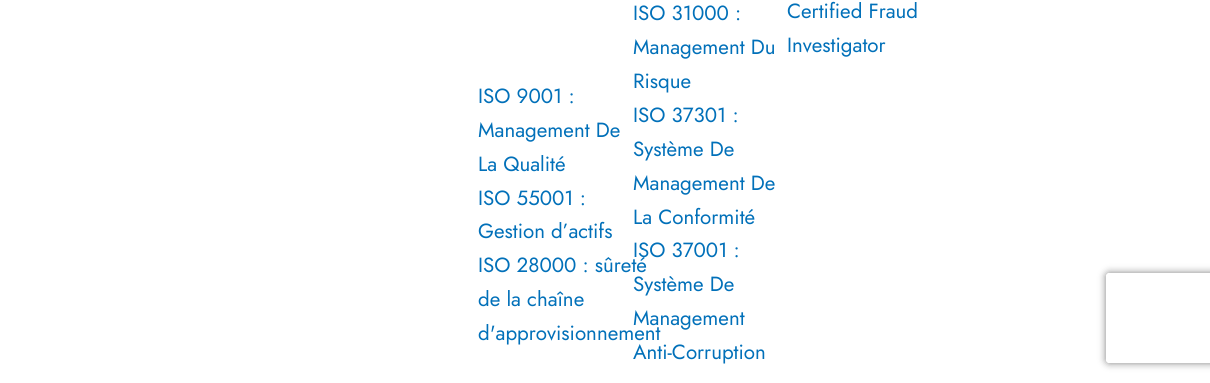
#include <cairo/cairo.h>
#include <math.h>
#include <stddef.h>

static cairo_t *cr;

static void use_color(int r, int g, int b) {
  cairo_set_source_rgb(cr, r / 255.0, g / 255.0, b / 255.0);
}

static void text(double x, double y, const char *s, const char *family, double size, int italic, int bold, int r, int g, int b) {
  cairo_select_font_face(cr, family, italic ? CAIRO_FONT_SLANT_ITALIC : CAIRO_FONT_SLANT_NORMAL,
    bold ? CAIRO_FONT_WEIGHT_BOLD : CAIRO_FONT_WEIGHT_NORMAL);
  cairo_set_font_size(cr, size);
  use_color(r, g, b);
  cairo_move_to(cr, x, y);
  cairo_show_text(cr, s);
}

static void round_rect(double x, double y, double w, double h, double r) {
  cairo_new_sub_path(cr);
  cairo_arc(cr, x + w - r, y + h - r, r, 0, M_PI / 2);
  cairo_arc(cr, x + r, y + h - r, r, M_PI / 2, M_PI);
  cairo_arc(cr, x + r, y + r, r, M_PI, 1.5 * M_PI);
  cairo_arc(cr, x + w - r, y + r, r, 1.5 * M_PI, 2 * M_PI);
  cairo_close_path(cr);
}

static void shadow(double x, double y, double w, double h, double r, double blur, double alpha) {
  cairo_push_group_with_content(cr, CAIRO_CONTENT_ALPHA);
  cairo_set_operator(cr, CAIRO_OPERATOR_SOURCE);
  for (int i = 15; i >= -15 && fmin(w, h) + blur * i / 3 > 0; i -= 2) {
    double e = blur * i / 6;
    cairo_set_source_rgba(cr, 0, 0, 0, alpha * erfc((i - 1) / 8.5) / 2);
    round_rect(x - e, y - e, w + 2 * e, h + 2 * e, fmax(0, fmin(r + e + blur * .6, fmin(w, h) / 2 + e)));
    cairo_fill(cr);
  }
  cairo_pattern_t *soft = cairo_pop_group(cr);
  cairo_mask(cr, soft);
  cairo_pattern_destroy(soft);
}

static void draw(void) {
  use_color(255, 255, 255);
  cairo_paint(cr);
  cairo_save(cr);
  cairo_set_fill_rule(cr, CAIRO_FILL_RULE_EVEN_ODD);
  cairo_new_path(cr);
  cairo_move_to(cr, 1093, 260);
  cairo_line_to(cr, 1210, 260);
  cairo_line_to(cr, 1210, 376);
  cairo_line_to(cr, 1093, 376);
  cairo_close_path(cr);
  cairo_move_to(cr, 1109, 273);
  cairo_line_to(cr, 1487, 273);
  cairo_curve_to(cr, 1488.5, 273, 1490, 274.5, 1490, 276);
  cairo_line_to(cr, 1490, 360);
  cairo_curve_to(cr, 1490, 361.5, 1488.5, 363, 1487, 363);
  cairo_line_to(cr, 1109, 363);
  cairo_curve_to(cr, 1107.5, 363, 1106, 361.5, 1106, 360);
  cairo_line_to(cr, 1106, 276);
  cairo_curve_to(cr, 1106, 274.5, 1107.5, 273, 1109, 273);
  cairo_close_path(cr);
  cairo_clip(cr);
  use_color(128, 128, 128);
  shadow(1106, 273, 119, 90, 3, 4, 1);
  cairo_restore(cr);
  text(478, 103, "ISO 9001 :", "Jost", 20.5, 0, 0, 1, 112, 185);
  text(478, 137, "Management De", "Jost", 20.5, 0, 0, 1, 112, 185);
  text(478, 171, "La Qualité", "Jost", 20.5, 0, 0, 1, 112, 185);
  text(478, 205, "ISO 55001 :", "Jost", 20.5, 0, 0, 1, 112, 185);
  text(478, 238, "Gestion d’actifs", "Jost", 20.5, 0, 0, 1, 112, 185);
  text(478, 272, "ISO 28000 : sûreté", "Jost", 20.5, 0, 0, 1, 112, 185);
  text(478, 306, "de la chaîne", "Jost", 20.5, 0, 0, 1, 112, 185);
  text(478, 340, "d'approvisionnement", "Jost", 20.5, 0, 0, 1, 112, 185);
  text(633, 20, "ISO 31000 :", "Jost", 20.5, 0, 0, 1, 112, 185);
  text(633, 54, "Management Du", "Jost", 20.5, 0, 0, 1, 112, 185);
  text(633, 88, "Risque", "Jost", 20.5, 0, 0, 1, 112, 185);
  text(633, 122, "ISO 37301 :", "Jost", 20.5, 0, 0, 1, 112, 185);
  text(633, 156, "Système De", "Jost", 20.5, 0, 0, 1, 112, 185);
  text(633, 190, "Management De", "Jost", 20.5, 0, 0, 1, 112, 185);
  text(633, 224, "La Conformité", "Jost", 20.5, 0, 0, 1, 112, 185);
  text(633, 257, "ISO 37001 :", "Jost", 20.5, 0, 0, 1, 112, 185);
  text(633, 291, "Système De", "Jost", 20.5, 0, 0, 1, 112, 185);
  text(633, 325, "Management", "Jost", 20.5, 0, 0, 1, 112, 185);
  text(633, 359, "Anti-Corruption", "Jost", 20.5, 0, 0, 1, 112, 185);
  text(787, 18, "Certified Fraud", "Jost", 20.5, 0, 0, 1, 112, 185);
  text(787, 52, "Investigator", "Jost", 20.5, 0, 0, 1, 112, 185);
}

int main(void) {
  cairo_surface_t *surface = cairo_image_surface_create(CAIRO_FORMAT_RGB24, 1210, 383);
  cr = cairo_create(surface);
  cairo_font_options_t *options = cairo_font_options_create();
  cairo_font_options_set_hint_metrics(options, CAIRO_HINT_METRICS_OFF);
  cairo_font_options_set_hint_style(options, CAIRO_HINT_STYLE_NONE);
  cairo_set_font_options(cr, options);
  cairo_set_miter_limit(cr, 4);
  draw();
  cairo_surface_write_to_png(surface, "out.png");
  cairo_font_options_destroy(options);
  cairo_destroy(cr);
  cairo_surface_destroy(surface);
  return 0;
}
